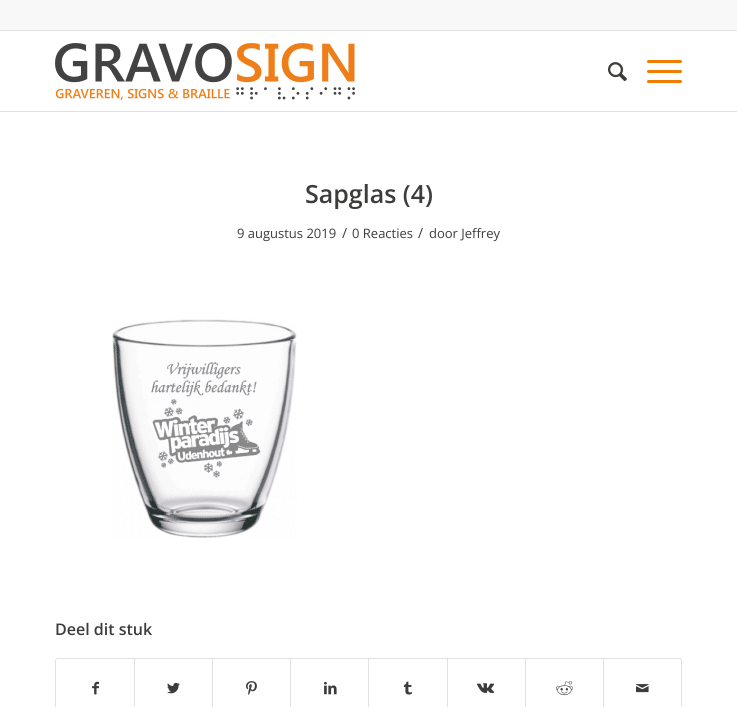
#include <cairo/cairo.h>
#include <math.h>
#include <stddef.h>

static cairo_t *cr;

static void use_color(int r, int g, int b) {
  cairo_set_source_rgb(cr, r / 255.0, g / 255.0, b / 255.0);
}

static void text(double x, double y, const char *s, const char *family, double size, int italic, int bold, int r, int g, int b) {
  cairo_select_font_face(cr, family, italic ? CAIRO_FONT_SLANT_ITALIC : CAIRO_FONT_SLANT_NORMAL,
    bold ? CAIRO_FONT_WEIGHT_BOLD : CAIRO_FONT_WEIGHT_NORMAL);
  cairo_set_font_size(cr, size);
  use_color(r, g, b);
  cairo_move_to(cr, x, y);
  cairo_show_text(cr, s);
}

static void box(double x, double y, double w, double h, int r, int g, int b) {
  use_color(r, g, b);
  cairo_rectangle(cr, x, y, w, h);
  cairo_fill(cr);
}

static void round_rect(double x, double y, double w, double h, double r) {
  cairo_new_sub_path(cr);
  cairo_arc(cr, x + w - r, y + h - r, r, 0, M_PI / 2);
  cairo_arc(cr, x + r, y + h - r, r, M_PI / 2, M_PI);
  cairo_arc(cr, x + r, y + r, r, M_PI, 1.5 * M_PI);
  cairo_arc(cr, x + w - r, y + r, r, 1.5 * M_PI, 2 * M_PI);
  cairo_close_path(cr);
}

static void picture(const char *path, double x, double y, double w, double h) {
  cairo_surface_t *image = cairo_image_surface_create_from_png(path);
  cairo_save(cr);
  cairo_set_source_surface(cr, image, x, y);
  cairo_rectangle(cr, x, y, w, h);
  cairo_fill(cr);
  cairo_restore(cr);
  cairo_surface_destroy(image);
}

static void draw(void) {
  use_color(255, 255, 255);
  cairo_paint(cr);
  box(0, 0, 737, 30, 248, 248, 248);
  box(0, 30, 737, 1, 225, 225, 225);
  box(0, 111, 737, 1, 225, 225, 225);
  picture("img_01.png", 55, 43, 300, 57);
  picture("img_02.png", 608, 62, 19, 20);
  use_color(240, 124, 0);
  round_rect(647, 70, 35, 3, 1.5);
  cairo_fill(cr);
  round_rect(647, 60, 35, 3, 1.5);
  cairo_fill(cr);
  round_rect(647, 80, 35, 3, 1.5);
  cairo_fill(cr);
  picture("img_03.png", 112, 319, 185, 219);
  round_rect(55.5, 658.5, 626, 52, 2.5);
  use_color(225, 225, 225);
  cairo_set_line_width(cr, 1);
  cairo_stroke(cr);
  picture("img_04.png", 92, 681, 7, 14);
  box(134, 659, 1, 48, 225, 225, 225);
  picture("img_05.png", 167, 682, 13, 12);
  box(212, 659, 1, 48, 225, 225, 225);
  picture("img_06.png", 246, 681, 11, 14);
  box(290, 659, 1, 48, 225, 225, 225);
  picture("img_07.png", 324, 681, 13, 14);
  box(368, 659, 1, 48, 225, 225, 225);
  picture("img_08.png", 404, 681, 8, 14);
  box(447, 659, 1, 48, 225, 225, 225);
  picture("img_09.png", 477, 683, 17, 10);
  box(525, 659, 1, 48, 225, 225, 225);
  picture("img_10.png", 556, 681, 17, 15);
  box(603, 659, 1, 48, 225, 225, 225);
  picture("img_11.png", 636, 684, 13, 9);
  text(305, 203, "Sapglas (4)", "Open Sans SemiBold", 25, 0, 0, 60, 60, 59);
  text(237, 238, "9 augustus 2019", "Open Sans", 13, 0, 0, 60, 60, 59);
  text(342, 238, "/", "Open Sans", 14, 0, 0, 60, 60, 59);
  text(352, 238, "0 Reacties", "Open Sans", 13, 0, 0, 60, 60, 59);
  text(418, 238, "/", "Open Sans", 14, 0, 0, 60, 60, 59);
  text(429, 238, "door Jeffrey", "Open Sans", 13, 0, 0, 60, 60, 59);
  text(55, 635, "Deel dit stuk", "Open Sans SemiBold", 16, 0, 0, 60, 60, 59);
}

int main(void) {
  cairo_surface_t *surface = cairo_image_surface_create(CAIRO_FORMAT_RGB24, 737, 707);
  cr = cairo_create(surface);
  cairo_font_options_t *options = cairo_font_options_create();
  cairo_font_options_set_hint_metrics(options, CAIRO_HINT_METRICS_OFF);
  cairo_font_options_set_hint_style(options, CAIRO_HINT_STYLE_NONE);
  cairo_set_font_options(cr, options);
  cairo_set_miter_limit(cr, 4);
  draw();
  cairo_surface_write_to_png(surface, "out.png");
  cairo_font_options_destroy(options);
  cairo_destroy(cr);
  cairo_surface_destroy(surface);
  return 0;
}
